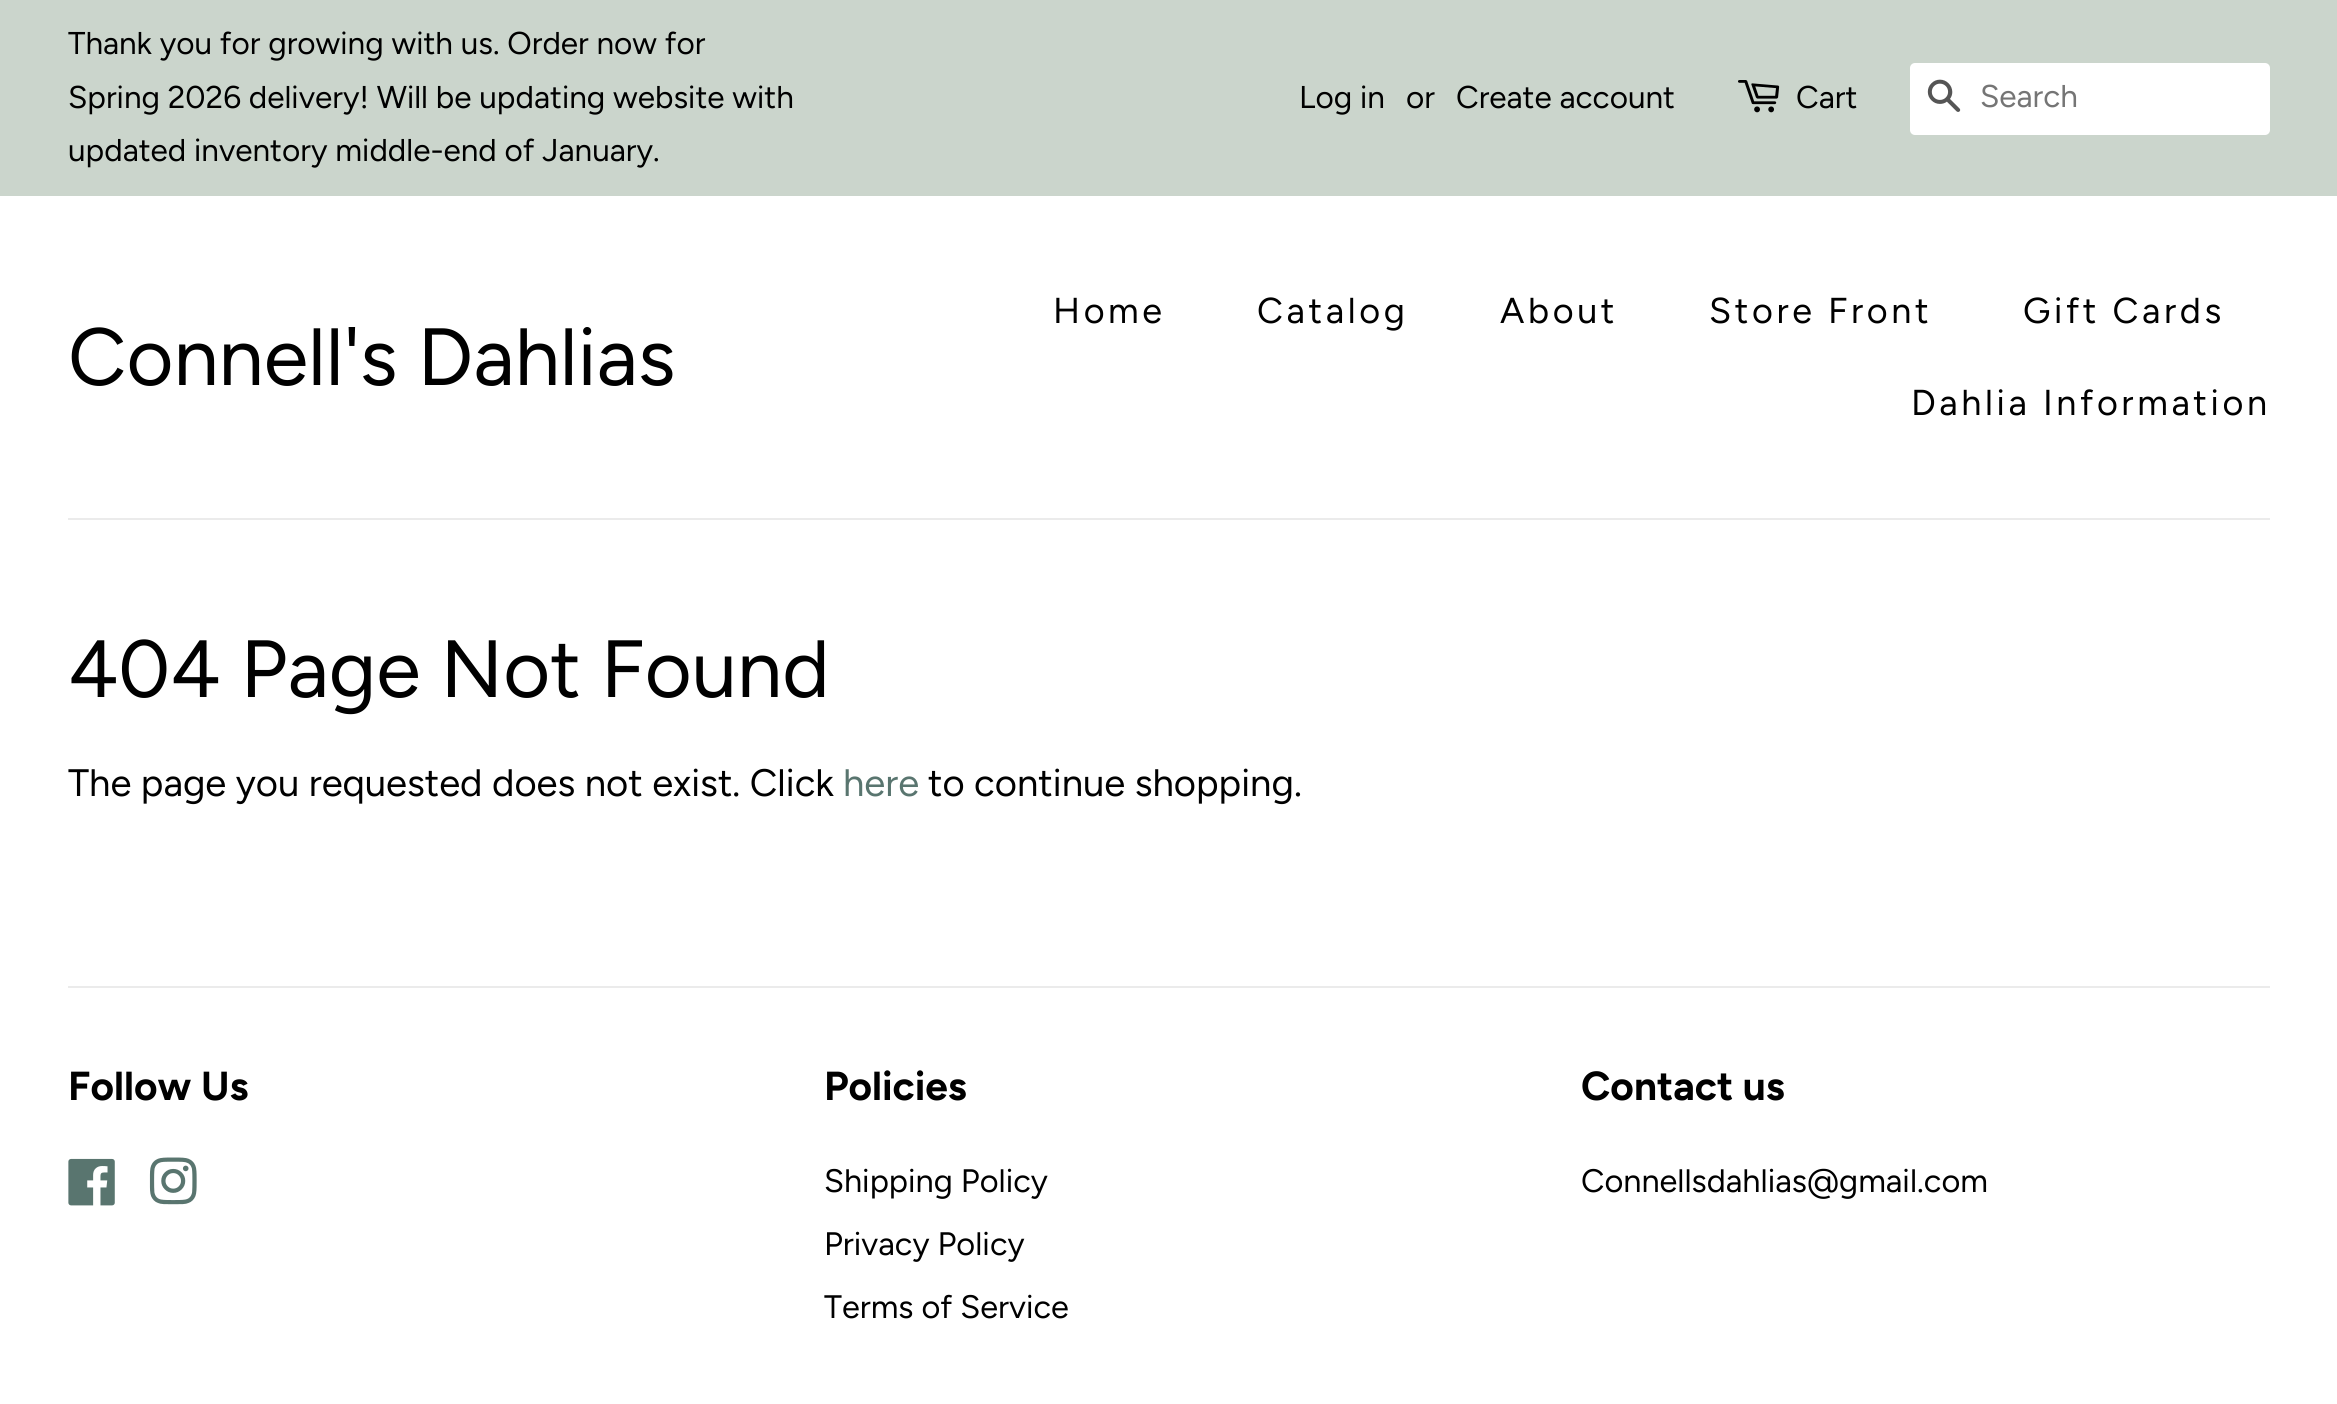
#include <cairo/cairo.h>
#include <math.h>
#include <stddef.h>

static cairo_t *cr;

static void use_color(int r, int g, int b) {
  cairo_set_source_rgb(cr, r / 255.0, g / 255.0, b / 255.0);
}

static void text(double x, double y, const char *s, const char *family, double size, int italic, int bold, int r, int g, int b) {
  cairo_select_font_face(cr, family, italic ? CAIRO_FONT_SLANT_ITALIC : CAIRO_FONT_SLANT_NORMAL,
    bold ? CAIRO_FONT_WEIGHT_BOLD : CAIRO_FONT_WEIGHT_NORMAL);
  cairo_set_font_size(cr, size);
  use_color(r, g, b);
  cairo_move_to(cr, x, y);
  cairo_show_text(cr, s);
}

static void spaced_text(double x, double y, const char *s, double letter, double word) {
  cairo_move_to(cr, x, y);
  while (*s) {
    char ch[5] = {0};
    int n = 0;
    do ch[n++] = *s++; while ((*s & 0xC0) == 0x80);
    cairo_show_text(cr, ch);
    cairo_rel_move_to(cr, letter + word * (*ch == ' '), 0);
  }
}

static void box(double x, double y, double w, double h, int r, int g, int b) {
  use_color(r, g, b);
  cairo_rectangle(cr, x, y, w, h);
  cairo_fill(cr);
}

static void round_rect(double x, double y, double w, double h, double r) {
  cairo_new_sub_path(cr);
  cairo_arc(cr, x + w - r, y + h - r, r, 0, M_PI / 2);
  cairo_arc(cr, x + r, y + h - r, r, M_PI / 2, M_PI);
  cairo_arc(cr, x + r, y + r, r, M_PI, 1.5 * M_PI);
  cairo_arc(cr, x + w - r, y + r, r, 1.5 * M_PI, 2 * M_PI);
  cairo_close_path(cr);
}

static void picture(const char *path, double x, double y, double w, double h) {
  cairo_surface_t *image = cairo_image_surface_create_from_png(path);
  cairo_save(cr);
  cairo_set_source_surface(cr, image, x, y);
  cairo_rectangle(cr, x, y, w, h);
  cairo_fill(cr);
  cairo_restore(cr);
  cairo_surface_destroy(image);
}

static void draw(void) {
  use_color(255, 255, 255);
  cairo_paint(cr);
  box(0, 0, 2337, 196, 203, 213, 204);
  picture("img_01.png", 1738, 80, 42, 33);
  use_color(255, 255, 255);
  round_rect(1910, 63, 360, 72, 5);
  cairo_fill(cr);
  picture("img_02.png", 1927, 79, 34, 33);
  box(68, 518, 2202, 2, 235, 235, 235);
  box(68, 986, 2202, 2, 235, 235, 235);
  picture("img_03.png", 68, 1158, 47, 48);
  picture("img_04.png", 149, 1157, 48, 48);
  cairo_save(cr);
  cairo_rectangle(cr, 68, 18, 733, 160);
  cairo_clip(cr);
  text(68, 54, "Thank you for growing with us. Order now for", "Figtree", 31.5, 0, 0, 0, 0, 0);
  cairo_restore(cr);
  text(68, 108, "Spring 2026 delivery! Will be updating website with", "Figtree", 31.5, 0, 0, 0, 0, 0);
  text(68, 161, "updated inventory middle-end of January.", "Figtree", 31.5, 0, 0, 0, 0, 0);
  text(1299, 108, "Log in", "Figtree", 31.5, 0, 0, 0, 0, 0);
  text(1406, 108, "or", "Figtree", 31.5, 0, 0, 0, 0, 0);
  text(1456, 108, "Create account", "Figtree", 31.5, 0, 0, 0, 0, 0);
  text(1796, 108, "Cart", "Figtree", 31.5, 0, 0, 0, 0, 0);
  text(1980, 107, "Search", "Figtree", 31.5, 0, 0, 117, 117, 117);
  text(68, 385, "Connell's Dahlias", "Figtree", 81, 0, 0, 0, 0, 0);
  cairo_set_font_size(cr, 36);
  spaced_text(1053, 323, "Home", 3.6, 0);
  spaced_text(1257, 323, "Catalog", 3.6, 0);
  spaced_text(1500, 323, "About", 3.6, 0);
  spaced_text(1709, 323, "Store Front", 3.6, 0);
  spaced_text(2023, 323, "Gift Cards", 3.6, 0);
  spaced_text(1911, 415, "Dahlia Information", 3.6, 0);
  text(68, 697, "404 Page Not Found", "Figtree", 81, 0, 0, 0, 0, 0);
  text(68, 796, "The page you requested does not exist. Click", "Figtree", 38.25, 0, 0, 0, 0, 0);
  text(843, 796, "here", "Figtree", 38.25, 0, 0, 89, 117, 111);
  text(928, 796, "to continue shopping.", "Figtree", 38.25, 0, 0, 0, 0, 0);
  text(68, 1100, "Follow Us", "Figtree", 40.5, 0, 1, 0, 0, 0);
  text(824, 1100, "Policies", "Figtree", 40.5, 0, 1, 0, 0, 0);
  text(824, 1192, "Shipping Policy", "Figtree", 32.5, 0, 0, 0, 0, 0);
  text(824, 1255, "Privacy Policy", "Figtree", 32.5, 0, 0, 0, 0, 0);
  text(824, 1318, "Terms of Service", "Figtree", 32.5, 0, 0, 0, 0, 0);
  text(1581, 1100, "Contact us", "Figtree", 40.5, 0, 1, 0, 0, 0);
  text(1581, 1192, "Connellsdahlias@gmail.com", "Figtree", 32.5, 0, 0, 0, 0, 0);
}

int main(void) {
  cairo_surface_t *surface = cairo_image_surface_create(CAIRO_FORMAT_RGB24, 2337, 1404);
  cr = cairo_create(surface);
  cairo_font_options_t *options = cairo_font_options_create();
  cairo_font_options_set_hint_metrics(options, CAIRO_HINT_METRICS_OFF);
  cairo_font_options_set_hint_style(options, CAIRO_HINT_STYLE_NONE);
  cairo_set_font_options(cr, options);
  cairo_set_miter_limit(cr, 4);
  draw();
  cairo_surface_write_to_png(surface, "out.png");
  cairo_font_options_destroy(options);
  cairo_destroy(cr);
  cairo_surface_destroy(surface);
  return 0;
}
